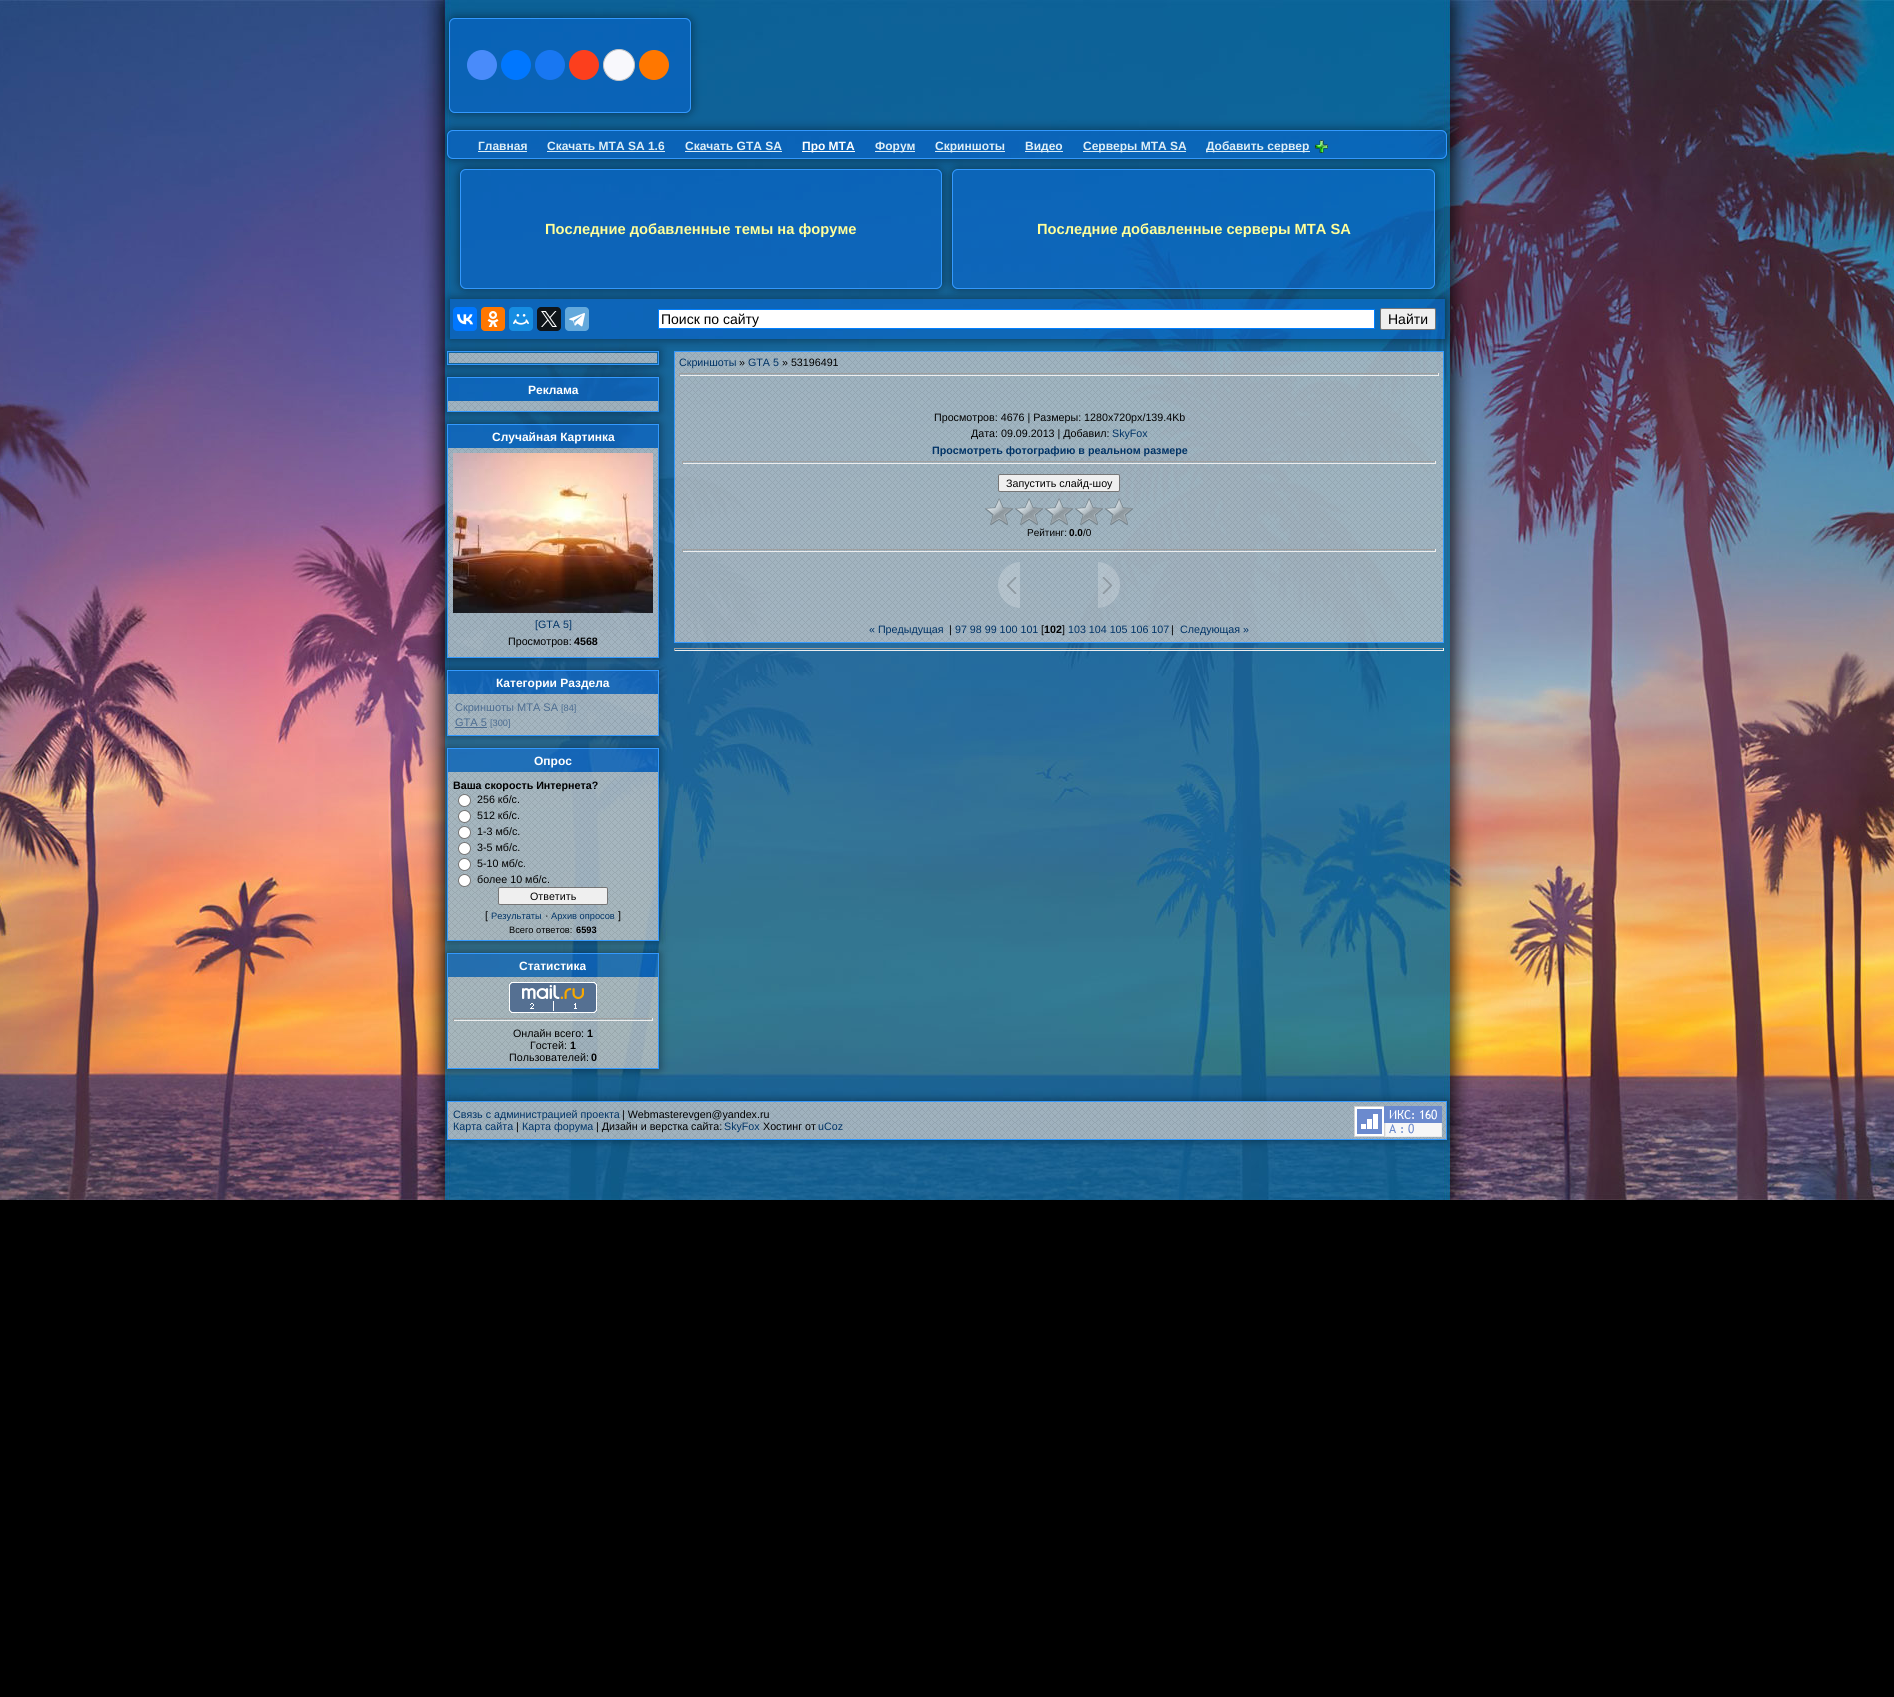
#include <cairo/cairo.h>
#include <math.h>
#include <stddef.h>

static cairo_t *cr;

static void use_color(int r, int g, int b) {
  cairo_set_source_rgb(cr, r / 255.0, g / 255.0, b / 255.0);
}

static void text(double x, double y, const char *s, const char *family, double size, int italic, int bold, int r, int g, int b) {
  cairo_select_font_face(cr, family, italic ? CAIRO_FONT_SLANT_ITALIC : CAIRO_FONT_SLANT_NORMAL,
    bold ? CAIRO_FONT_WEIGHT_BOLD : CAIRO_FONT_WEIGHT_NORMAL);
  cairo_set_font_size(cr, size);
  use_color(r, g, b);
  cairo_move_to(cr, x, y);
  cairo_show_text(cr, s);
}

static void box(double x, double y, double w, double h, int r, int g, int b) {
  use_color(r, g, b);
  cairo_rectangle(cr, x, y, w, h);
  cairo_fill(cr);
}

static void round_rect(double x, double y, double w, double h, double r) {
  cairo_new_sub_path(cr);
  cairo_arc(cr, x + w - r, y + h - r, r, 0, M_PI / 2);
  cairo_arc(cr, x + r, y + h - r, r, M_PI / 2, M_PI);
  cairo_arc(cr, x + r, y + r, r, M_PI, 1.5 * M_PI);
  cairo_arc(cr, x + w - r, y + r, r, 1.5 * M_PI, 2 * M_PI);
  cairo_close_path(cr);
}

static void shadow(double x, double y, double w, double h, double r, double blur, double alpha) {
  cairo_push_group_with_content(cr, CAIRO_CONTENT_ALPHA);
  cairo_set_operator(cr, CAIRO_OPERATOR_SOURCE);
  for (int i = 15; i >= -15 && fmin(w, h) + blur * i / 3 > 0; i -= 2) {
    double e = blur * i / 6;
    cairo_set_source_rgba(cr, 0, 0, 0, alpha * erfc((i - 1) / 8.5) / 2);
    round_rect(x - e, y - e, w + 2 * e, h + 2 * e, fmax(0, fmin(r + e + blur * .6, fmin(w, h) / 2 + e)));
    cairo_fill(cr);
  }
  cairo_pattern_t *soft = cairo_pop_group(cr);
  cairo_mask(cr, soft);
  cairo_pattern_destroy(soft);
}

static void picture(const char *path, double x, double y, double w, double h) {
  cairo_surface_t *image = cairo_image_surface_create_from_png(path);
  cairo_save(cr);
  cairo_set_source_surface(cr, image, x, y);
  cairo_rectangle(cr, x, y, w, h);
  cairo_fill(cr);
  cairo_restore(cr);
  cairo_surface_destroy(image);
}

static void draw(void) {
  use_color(0, 0, 0);
  cairo_paint(cr);
  picture("img_01.png", 0, 0, 1894, 1200);
  cairo_save(cr);
  cairo_set_fill_rule(cr, CAIRO_FILL_RULE_EVEN_ODD);
  cairo_new_path(cr);
  cairo_move_to(cr, 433, 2);
  cairo_line_to(cr, 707, 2);
  cairo_line_to(cr, 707, 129);
  cairo_line_to(cr, 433, 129);
  cairo_close_path(cr);
  cairo_move_to(cr, 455, 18);
  cairo_line_to(cr, 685, 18);
  cairo_curve_to(cr, 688.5, 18, 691, 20.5, 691, 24);
  cairo_line_to(cr, 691, 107);
  cairo_curve_to(cr, 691, 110.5, 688.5, 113, 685, 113);
  cairo_line_to(cr, 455, 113);
  cairo_curve_to(cr, 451.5, 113, 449, 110.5, 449, 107);
  cairo_line_to(cr, 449, 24);
  cairo_curve_to(cr, 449, 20.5, 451.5, 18, 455, 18);
  cairo_close_path(cr);
  cairo_clip(cr);
  shadow(449, 18, 242, 95, 6, 5, 0.5);
  cairo_restore(cr);
  picture("img_02.png", 449, 18, 242, 95);
  round_rect(449.5, 18.5, 241, 94, 5.5);
  use_color(51, 153, 255);
  cairo_set_line_width(cr, 1);
  cairo_stroke(cr);
  use_color(73, 139, 250);
  cairo_arc(cr, 482, 65, 15, 0, 2 * M_PI);
  cairo_fill(cr);
  use_color(0, 119, 255);
  cairo_arc(cr, 516, 65, 15, 0, 2 * M_PI);
  cairo_fill(cr);
  use_color(24, 119, 242);
  cairo_arc(cr, 550, 65, 15, 0, 2 * M_PI);
  cairo_fill(cr);
  use_color(252, 63, 29);
  cairo_arc(cr, 584, 65, 15, 0, 2 * M_PI);
  cairo_fill(cr);
  use_color(248, 248, 252);
  cairo_arc(cr, 619, 65, 15.5, 0, 2 * M_PI);
  cairo_fill_preserve(cr);
  use_color(196, 196, 196);
  cairo_stroke(cr);
  use_color(255, 119, 0);
  cairo_arc(cr, 654, 65, 15, 0, 2 * M_PI);
  cairo_fill(cr);
  cairo_save(cr);
  cairo_set_fill_rule(cr, CAIRO_FILL_RULE_EVEN_ODD);
  cairo_new_path(cr);
  cairo_move_to(cr, 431, 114);
  cairo_line_to(cr, 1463, 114);
  cairo_line_to(cr, 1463, 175);
  cairo_line_to(cr, 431, 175);
  cairo_close_path(cr);
  cairo_move_to(cr, 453, 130);
  cairo_line_to(cr, 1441, 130);
  cairo_curve_to(cr, 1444.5, 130, 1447, 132.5, 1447, 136);
  cairo_line_to(cr, 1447, 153);
  cairo_curve_to(cr, 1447, 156.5, 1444.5, 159, 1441, 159);
  cairo_line_to(cr, 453, 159);
  cairo_curve_to(cr, 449.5, 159, 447, 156.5, 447, 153);
  cairo_line_to(cr, 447, 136);
  cairo_curve_to(cr, 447, 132.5, 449.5, 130, 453, 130);
  cairo_close_path(cr);
  cairo_clip(cr);
  use_color(0, 0, 0);
  shadow(447, 130, 1000, 29, 6, 5, 0.5);
  cairo_restore(cr);
  picture("img_03.png", 447, 130, 1000, 29);
  round_rect(447.5, 130.5, 999, 28, 5.5);
  use_color(51, 153, 255);
  cairo_stroke(cr);
  box(478, 151, 49, 1, 221, 238, 247);
  box(547, 151, 118, 1, 221, 238, 247);
  box(685, 151, 97, 1, 221, 238, 247);
  box(802, 151, 53, 1, 255, 255, 255);
  box(875, 151, 40, 1, 221, 238, 247);
  box(935, 151, 70, 1, 221, 238, 247);
  box(1025, 151, 38, 1, 221, 238, 247);
  box(1083, 151, 103, 1, 221, 238, 247);
  box(1206, 151, 104, 1, 221, 238, 247);
  picture("img_04.png", 1315, 140, 13, 13);
  cairo_save(cr);
  cairo_set_fill_rule(cr, CAIRO_FILL_RULE_EVEN_ODD);
  cairo_new_path(cr);
  cairo_move_to(cr, 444, 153);
  cairo_line_to(cr, 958, 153);
  cairo_line_to(cr, 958, 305);
  cairo_line_to(cr, 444, 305);
  cairo_close_path(cr);
  cairo_move_to(cr, 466, 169);
  cairo_line_to(cr, 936, 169);
  cairo_curve_to(cr, 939.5, 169, 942, 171.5, 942, 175);
  cairo_line_to(cr, 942, 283);
  cairo_curve_to(cr, 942, 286.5, 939.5, 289, 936, 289);
  cairo_line_to(cr, 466, 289);
  cairo_curve_to(cr, 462.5, 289, 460, 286.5, 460, 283);
  cairo_line_to(cr, 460, 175);
  cairo_curve_to(cr, 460, 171.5, 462.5, 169, 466, 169);
  cairo_close_path(cr);
  cairo_clip(cr);
  use_color(0, 0, 0);
  shadow(460, 169, 482, 120, 6, 5, 0.5);
  cairo_restore(cr);
  picture("img_05.png", 460, 169, 482, 120);
  round_rect(460.5, 169.5, 481, 119, 5.5);
  use_color(51, 153, 255);
  cairo_stroke(cr);
  cairo_save(cr);
  cairo_set_fill_rule(cr, CAIRO_FILL_RULE_EVEN_ODD);
  cairo_new_path(cr);
  cairo_move_to(cr, 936, 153);
  cairo_line_to(cr, 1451, 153);
  cairo_line_to(cr, 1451, 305);
  cairo_line_to(cr, 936, 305);
  cairo_close_path(cr);
  cairo_move_to(cr, 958, 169);
  cairo_line_to(cr, 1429, 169);
  cairo_curve_to(cr, 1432.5, 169, 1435, 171.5, 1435, 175);
  cairo_line_to(cr, 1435, 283);
  cairo_curve_to(cr, 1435, 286.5, 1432.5, 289, 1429, 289);
  cairo_line_to(cr, 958, 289);
  cairo_curve_to(cr, 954.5, 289, 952, 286.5, 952, 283);
  cairo_line_to(cr, 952, 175);
  cairo_curve_to(cr, 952, 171.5, 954.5, 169, 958, 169);
  cairo_close_path(cr);
  cairo_clip(cr);
  use_color(0, 0, 0);
  shadow(952, 169, 483, 120, 6, 5, 0.5);
  cairo_restore(cr);
  picture("img_06.png", 952, 169, 483, 120);
  round_rect(952.5, 169.5, 482, 119, 5.5);
  cairo_stroke(cr);
  cairo_save(cr);
  cairo_set_fill_rule(cr, CAIRO_FILL_RULE_EVEN_ODD);
  cairo_new_path(cr);
  cairo_move_to(cr, 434, 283);
  cairo_line_to(cr, 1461, 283);
  cairo_line_to(cr, 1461, 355);
  cairo_line_to(cr, 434, 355);
  cairo_close_path(cr);
  cairo_move_to(cr, 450, 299);
  cairo_line_to(cr, 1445, 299);
  cairo_line_to(cr, 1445, 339);
  cairo_line_to(cr, 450, 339);
  cairo_close_path(cr);
  cairo_clip(cr);
  use_color(0, 0, 0);
  shadow(450, 299, 995, 40, 0, 5, 0.5);
  cairo_restore(cr);
  cairo_set_source_rgba(cr, 0, 0.404, 1, 0.3);
  cairo_rectangle(cr, 450, 299, 995, 40);
  cairo_fill(cr);
  use_color(0, 119, 255);
  round_rect(453, 307, 24, 24, 4);
  cairo_fill(cr);
  picture("img_07.png", 457, 314, 16, 11);
  use_color(255, 119, 0);
  round_rect(481, 307, 24, 24, 4);
  cairo_fill(cr);
  picture("img_08.png", 487, 311, 12, 16);
  use_color(22, 141, 226);
  round_rect(509, 307, 24, 24, 4);
  cairo_fill(cr);
  picture("img_09.png", 513, 314, 16, 11);
  use_color(15, 20, 25);
  round_rect(537, 307, 24, 24, 4);
  cairo_fill(cr);
  picture("img_10.png", 541, 311, 16, 16);
  use_color(100, 169, 220);
  round_rect(565, 307, 24, 24, 4);
  cairo_fill(cr);
  picture("img_11.png", 569, 313, 16, 14);
  use_color(255, 255, 255);
  cairo_rectangle(cr, 658.5, 309.5, 716, 19);
  cairo_fill_preserve(cr);
  use_color(0, 127, 255);
  cairo_stroke(cr);
  use_color(239, 239, 239);
  round_rect(1380.5, 308.5, 55, 21, 1.5);
  cairo_fill_preserve(cr);
  use_color(118, 118, 118);
  cairo_stroke(cr);
  cairo_save(cr);
  cairo_set_fill_rule(cr, CAIRO_FILL_RULE_EVEN_ODD);
  cairo_new_path(cr);
  cairo_move_to(cr, 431, 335);
  cairo_line_to(cr, 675, 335);
  cairo_line_to(cr, 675, 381);
  cairo_line_to(cr, 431, 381);
  cairo_close_path(cr);
  cairo_move_to(cr, 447, 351);
  cairo_line_to(cr, 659, 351);
  cairo_line_to(cr, 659, 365);
  cairo_line_to(cr, 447, 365);
  cairo_close_path(cr);
  cairo_clip(cr);
  use_color(0, 0, 0);
  shadow(447, 351, 212, 14, 0, 5, 0.5);
  cairo_restore(cr);
  cairo_rectangle(cr, 447.5, 351.5, 211, 13);
  use_color(51, 153, 255);
  cairo_stroke(cr);
  picture("img_12.png", 449, 353, 208, 10);
  cairo_save(cr);
  cairo_set_fill_rule(cr, CAIRO_FILL_RULE_EVEN_ODD);
  cairo_new_path(cr);
  cairo_move_to(cr, 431, 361);
  cairo_line_to(cr, 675, 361);
  cairo_line_to(cr, 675, 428);
  cairo_line_to(cr, 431, 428);
  cairo_close_path(cr);
  cairo_move_to(cr, 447, 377);
  cairo_line_to(cr, 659, 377);
  cairo_line_to(cr, 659, 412);
  cairo_line_to(cr, 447, 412);
  cairo_close_path(cr);
  cairo_clip(cr);
  use_color(0, 0, 0);
  shadow(447, 377, 212, 35, 0, 5, 0.5);
  cairo_restore(cr);
  cairo_rectangle(cr, 447.5, 377.5, 211, 34);
  cairo_stroke(cr);
  cairo_set_source_rgba(cr, 0, 0.404, 1, 0.3);
  cairo_rectangle(cr, 448, 378, 210, 23);
  cairo_fill(cr);
  picture("img_13.png", 448, 401, 210, 10);
  cairo_save(cr);
  cairo_set_fill_rule(cr, CAIRO_FILL_RULE_EVEN_ODD);
  cairo_new_path(cr);
  cairo_move_to(cr, 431, 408);
  cairo_line_to(cr, 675, 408);
  cairo_line_to(cr, 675, 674);
  cairo_line_to(cr, 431, 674);
  cairo_close_path(cr);
  cairo_move_to(cr, 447, 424);
  cairo_line_to(cr, 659, 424);
  cairo_line_to(cr, 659, 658);
  cairo_line_to(cr, 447, 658);
  cairo_close_path(cr);
  cairo_clip(cr);
  use_color(0, 0, 0);
  shadow(447, 424, 212, 234, 0, 5, 0.5);
  cairo_restore(cr);
  cairo_rectangle(cr, 447.5, 424.5, 211, 233);
  use_color(51, 153, 255);
  cairo_stroke(cr);
  cairo_set_source_rgba(cr, 0, 0.404, 1, 0.3);
  cairo_rectangle(cr, 448, 425, 210, 23);
  cairo_fill(cr);
  picture("img_14.png", 448, 448, 210, 209);
  picture("img_15.png", 453, 453, 200, 160);
  cairo_save(cr);
  cairo_set_fill_rule(cr, CAIRO_FILL_RULE_EVEN_ODD);
  cairo_new_path(cr);
  cairo_move_to(cr, 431, 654);
  cairo_line_to(cr, 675, 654);
  cairo_line_to(cr, 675, 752);
  cairo_line_to(cr, 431, 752);
  cairo_close_path(cr);
  cairo_move_to(cr, 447, 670);
  cairo_line_to(cr, 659, 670);
  cairo_line_to(cr, 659, 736);
  cairo_line_to(cr, 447, 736);
  cairo_close_path(cr);
  cairo_clip(cr);
  use_color(0, 0, 0);
  shadow(447, 670, 212, 66, 0, 5, 0.5);
  cairo_restore(cr);
  cairo_rectangle(cr, 447.5, 670.5, 211, 65);
  use_color(51, 153, 255);
  cairo_stroke(cr);
  cairo_set_source_rgba(cr, 0, 0.404, 1, 0.3);
  cairo_rectangle(cr, 448, 671, 210, 23);
  cairo_fill(cr);
  picture("img_16.png", 448, 694, 210, 41);
  box(455, 727, 32, 1, 77, 109, 145);
  cairo_save(cr);
  cairo_set_fill_rule(cr, CAIRO_FILL_RULE_EVEN_ODD);
  cairo_new_path(cr);
  cairo_move_to(cr, 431, 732);
  cairo_line_to(cr, 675, 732);
  cairo_line_to(cr, 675, 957);
  cairo_line_to(cr, 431, 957);
  cairo_close_path(cr);
  cairo_move_to(cr, 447, 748);
  cairo_line_to(cr, 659, 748);
  cairo_line_to(cr, 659, 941);
  cairo_line_to(cr, 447, 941);
  cairo_close_path(cr);
  cairo_clip(cr);
  use_color(0, 0, 0);
  shadow(447, 748, 212, 193, 0, 5, 0.5);
  cairo_restore(cr);
  cairo_rectangle(cr, 447.5, 748.5, 211, 192);
  use_color(51, 153, 255);
  cairo_stroke(cr);
  cairo_set_source_rgba(cr, 0, 0.404, 1, 0.3);
  cairo_rectangle(cr, 448, 749, 210, 23);
  cairo_fill(cr);
  picture("img_17.png", 448, 772, 210, 168);
  use_color(255, 255, 255);
  cairo_arc(cr, 464.5, 800.5, 6, 0, 2 * M_PI);
  cairo_fill_preserve(cr);
  use_color(118, 118, 118);
  cairo_stroke(cr);
  use_color(255, 255, 255);
  cairo_arc(cr, 464.5, 816.5, 6, 0, 2 * M_PI);
  cairo_fill_preserve(cr);
  use_color(118, 118, 118);
  cairo_stroke(cr);
  use_color(255, 255, 255);
  cairo_arc(cr, 464.5, 832.5, 6, 0, 2 * M_PI);
  cairo_fill_preserve(cr);
  use_color(118, 118, 118);
  cairo_stroke(cr);
  use_color(255, 255, 255);
  cairo_arc(cr, 464.5, 848.5, 6, 0, 2 * M_PI);
  cairo_fill_preserve(cr);
  use_color(118, 118, 118);
  cairo_stroke(cr);
  use_color(255, 255, 255);
  cairo_arc(cr, 464.5, 864.5, 6, 0, 2 * M_PI);
  cairo_fill_preserve(cr);
  use_color(118, 118, 118);
  cairo_stroke(cr);
  use_color(255, 255, 255);
  cairo_arc(cr, 464.5, 880.5, 6, 0, 2 * M_PI);
  cairo_fill_preserve(cr);
  use_color(118, 118, 118);
  cairo_stroke(cr);
  use_color(239, 239, 239);
  round_rect(498.5, 887.5, 109, 17, 1.5);
  cairo_fill_preserve(cr);
  use_color(118, 118, 118);
  cairo_stroke(cr);
  cairo_save(cr);
  cairo_set_fill_rule(cr, CAIRO_FILL_RULE_EVEN_ODD);
  cairo_new_path(cr);
  cairo_move_to(cr, 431, 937);
  cairo_line_to(cr, 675, 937);
  cairo_line_to(cr, 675, 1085);
  cairo_line_to(cr, 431, 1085);
  cairo_close_path(cr);
  cairo_move_to(cr, 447, 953);
  cairo_line_to(cr, 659, 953);
  cairo_line_to(cr, 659, 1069);
  cairo_line_to(cr, 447, 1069);
  cairo_close_path(cr);
  cairo_clip(cr);
  use_color(0, 0, 0);
  shadow(447, 953, 212, 116, 0, 5, 0.5);
  cairo_restore(cr);
  cairo_rectangle(cr, 447.5, 953.5, 211, 115);
  use_color(51, 153, 255);
  cairo_stroke(cr);
  cairo_set_source_rgba(cr, 0, 0.404, 1, 0.3);
  cairo_rectangle(cr, 448, 954, 210, 23);
  cairo_fill(cr);
  picture("img_18.png", 448, 977, 210, 91);
  picture("img_19.png", 509, 982, 88, 31);
  box(453, 1018, 200, 1, 159, 159, 159);
  box(652, 1018, 1, 3, 238, 238, 238);
  box(453, 1020, 200, 1, 238, 238, 238);
  box(453, 1018, 1, 3, 159, 159, 159);
  picture("img_20.png", 675, 352, 768, 290);
  cairo_rectangle(cr, 674.5, 351.5, 769, 291);
  use_color(51, 153, 255);
  cairo_stroke(cr);
  box(679, 373, 760, 1, 159, 159, 159);
  box(1438, 373, 1, 3, 238, 238, 238);
  box(679, 375, 760, 1, 238, 238, 238);
  box(679, 373, 1, 3, 159, 159, 159);
  box(682, 461, 754, 1, 159, 159, 159);
  box(1435, 461, 1, 3, 238, 238, 238);
  box(682, 463, 754, 1, 238, 238, 238);
  box(682, 461, 1, 3, 159, 159, 159);
  use_color(239, 239, 239);
  round_rect(998.5, 474.5, 121, 17, 1.5);
  cairo_fill_preserve(cr);
  use_color(118, 118, 118);
  cairo_stroke(cr);
  picture("img_21.png", 985, 498, 148, 28);
  box(682, 549, 754, 1, 159, 159, 159);
  box(1435, 549, 1, 3, 238, 238, 238);
  box(682, 551, 754, 1, 238, 238, 238);
  box(682, 549, 1, 3, 159, 159, 159);
  picture("img_22.png", 998, 562, 22, 46);
  picture("img_23.png", 1098, 562, 22, 46);
  box(674, 648, 770, 1, 159, 159, 159);
  box(1443, 648, 1, 3, 238, 238, 238);
  box(674, 650, 770, 1, 238, 238, 238);
  box(674, 648, 1, 3, 159, 159, 159);
  cairo_save(cr);
  cairo_set_fill_rule(cr, CAIRO_FILL_RULE_EVEN_ODD);
  cairo_new_path(cr);
  cairo_move_to(cr, 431, 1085);
  cairo_line_to(cr, 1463, 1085);
  cairo_line_to(cr, 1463, 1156);
  cairo_line_to(cr, 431, 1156);
  cairo_close_path(cr);
  cairo_move_to(cr, 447, 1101);
  cairo_line_to(cr, 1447, 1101);
  cairo_line_to(cr, 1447, 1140);
  cairo_line_to(cr, 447, 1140);
  cairo_close_path(cr);
  cairo_clip(cr);
  use_color(0, 0, 0);
  shadow(447, 1101, 1000, 39, 0, 5, 0.5);
  cairo_restore(cr);
  picture("img_24.png", 448, 1102, 998, 37);
  cairo_rectangle(cr, 447.5, 1101.5, 999, 38);
  use_color(51, 153, 255);
  cairo_stroke(cr);
  picture("img_25.png", 1354, 1106, 88, 31);
  text(478, 150, "Главная", "Liberation Sans", 12, 0, 1, 221, 238, 247);
  text(547, 150, "Скачать MTA SA 1.6", "Liberation Sans", 12, 0, 1, 221, 238, 247);
  text(685, 150, "Скачать GTA SA", "Liberation Sans", 12, 0, 1, 221, 238, 247);
  text(802, 150, "Про MTA", "Liberation Sans", 12, 0, 1, 255, 255, 255);
  text(875, 150, "Форум", "Liberation Sans", 12, 0, 1, 221, 238, 247);
  text(935, 150, "Скриншоты", "Liberation Sans", 12, 0, 1, 221, 238, 247);
  text(1025, 150, "Видео", "Liberation Sans", 12, 0, 1, 221, 238, 247);
  text(1083, 150, "Серверы MTA SA", "Liberation Sans", 12, 0, 1, 221, 238, 247);
  text(1206, 150, "Добавить сервер", "Liberation Sans", 12, 0, 1, 221, 238, 247);
  text(545, 234, "Последние добавленные темы на форуме", "Liberation Sans", 14.7, 0, 1, 255, 255, 153);
  text(1037, 234, "Последние добавленные серверы MTA SA", "Liberation Sans", 14.7, 0, 1, 255, 255, 153);
  text(661, 324, "Поиск по сайту", "Liberation Sans", 14, 0, 0, 0, 0, 0);
  text(1388, 324, "Найти", "Liberation Sans", 14, 0, 0, 0, 0, 0);
  text(528, 394, "Реклама", "Liberation Sans", 12, 0, 1, 255, 255, 255);
  text(492, 441, "Случайная Картинка", "Liberation Sans", 12, 0, 1, 255, 255, 255);
  text(535, 628, "[GTA 5]", "Liberation Sans", 10.7, 0, 0, 0, 51, 102);
  text(508, 645, "Проcмотров:", "Liberation Sans", 10.7, 0, 0, 0, 0, 0);
  text(574, 645, "4568", "Liberation Sans", 10.7, 0, 1, 0, 0, 0);
  text(496, 687, "Категории Раздела", "Liberation Sans", 12, 0, 1, 255, 255, 255);
  text(455, 711, "Скриншоты MTA SA", "Liberation Sans", 11, 0, 0, 77, 109, 145);
  text(561, 711, "[84]", "Liberation Sans", 9.25, 0, 0, 77, 109, 145);
  text(455, 726, "GTA 5", "Liberation Sans", 11, 0, 0, 77, 109, 145);
  text(490, 726, "[300]", "Liberation Sans", 9.25, 0, 0, 77, 109, 145);
  text(534, 765, "Опрос", "Liberation Sans", 12, 0, 1, 255, 255, 255);
  text(453, 789, "Ваша скорость Интернета?", "Liberation Sans", 10.7, 0, 1, 0, 0, 0);
  text(477, 803, "256 кб/с.", "Liberation Sans", 10.7, 0, 0, 0, 0, 0);
  text(477, 819, "512 кб/с.", "Liberation Sans", 10.7, 0, 0, 0, 0, 0);
  text(477, 835, "1-3 мб/с.", "Liberation Sans", 10.7, 0, 0, 0, 0, 0);
  text(477, 851, "3-5 мб/с.", "Liberation Sans", 10.7, 0, 0, 0, 0, 0);
  text(477, 867, "5-10 мб/с.", "Liberation Sans", 10.7, 0, 0, 0, 0, 0);
  text(477, 883, "более 10 мб/с.", "Liberation Sans", 10.7, 0, 0, 0, 0, 0);
  text(530, 900, "Ответить", "Liberation Sans", 10.7, 0, 0, 0, 0, 0);
  text(485, 919, "[", "Liberation Sans", 10.7, 0, 0, 0, 0, 0);
  text(491, 919, "Результаты", "Liberation Sans", 9.25, 0, 0, 0, 51, 102);
  text(545, 919, "·", "Liberation Sans", 10.7, 0, 0, 0, 0, 0);
  text(551, 919, "Архив опросов", "Liberation Sans", 9.25, 0, 0, 0, 51, 102);
  text(618, 919, "]", "Liberation Sans", 10.7, 0, 0, 0, 0, 0);
  text(509, 933, "Всего ответов:", "Liberation Sans", 9.25, 0, 0, 0, 0, 0);
  text(576, 933, "6593", "Liberation Sans", 9.25, 0, 1, 0, 0, 0);
  text(519, 970, "Статистика", "Liberation Sans", 12, 0, 1, 255, 255, 255);
  text(513, 1037, "Онлайн всего:", "Liberation Sans", 10.7, 0, 0, 0, 0, 0);
  text(587, 1037, "1", "Liberation Sans", 10.7, 0, 1, 0, 0, 0);
  text(530, 1049, "Гостей:", "Liberation Sans", 10.7, 0, 0, 0, 0, 0);
  text(570, 1049, "1", "Liberation Sans", 10.7, 0, 1, 0, 0, 0);
  text(509, 1061, "Пользователей:", "Liberation Sans", 10.7, 0, 0, 0, 0, 0);
  text(591, 1061, "0", "Liberation Sans", 10.7, 0, 1, 0, 0, 0);
  text(679, 366, "Скриншоты", "Liberation Sans", 10.7, 0, 0, 0, 51, 102);
  text(739, 366, "»", "Liberation Sans", 10.7, 0, 0, 0, 0, 0);
  text(748, 366, "GTA 5", "Liberation Sans", 10.7, 0, 0, 0, 51, 102);
  text(782, 366, "» 53196491", "Liberation Sans", 10.7, 0, 0, 0, 0, 0);
  text(934, 421, "Просмотров: 4676 | Размеры: 1280x720px/139.4Kb", "Liberation Sans", 10.7, 0, 0, 0, 0, 0);
  text(971, 437, "Дата: 09.09.2013 | Добавил:", "Liberation Sans", 10.7, 0, 0, 0, 0, 0);
  text(1112, 437, "SkyFox", "Liberation Sans", 10.7, 0, 0, 0, 51, 102);
  text(932, 454, "Просмотреть фотографию в реальном размере", "Liberation Sans", 10.7, 0, 1, 0, 51, 102);
  text(1006, 487, "Запустить слайд-шоу", "Liberation Sans", 10.7, 0, 0, 0, 0, 0);
  text(1027, 536, "Рейтинг:", "Liberation Sans", 10, 0, 0, 0, 0, 0);
  text(1069, 536, "0.0", "Liberation Sans", 10, 0, 1, 0, 0, 0);
  text(1083, 536, "/0", "Liberation Sans", 10, 0, 0, 0, 0, 0);
  text(869, 633, "« Предыдущая", "Liberation Sans", 10.7, 0, 0, 0, 51, 102);
  text(949, 633, "|", "Liberation Sans", 10.7, 0, 0, 0, 0, 0);
  text(955, 633, "97 98 99 100 101", "Liberation Sans", 10.7, 0, 0, 0, 51, 102);
  text(1041, 633, "[", "Liberation Sans", 10.7, 0, 0, 0, 0, 0);
  text(1044, 633, "102", "Liberation Sans", 10.7, 0, 1, 0, 0, 0);
  text(1062, 633, "]", "Liberation Sans", 10.7, 0, 0, 0, 0, 0);
  text(1068, 633, "103 104 105 106 107", "Liberation Sans", 10.7, 0, 0, 0, 51, 102);
  text(1171, 633, "|", "Liberation Sans", 10.7, 0, 0, 0, 0, 0);
  text(1180, 633, "Следующая »", "Liberation Sans", 10.7, 0, 0, 0, 51, 102);
  text(453, 1118, "Связь с администрацией проекта", "Liberation Sans", 10.7, 0, 0, 0, 51, 102);
  text(622, 1118, "| Webmasterevgen@yandex.ru", "Liberation Sans", 10.7, 0, 0, 0, 0, 0);
  text(453, 1130, "Карта сайта", "Liberation Sans", 10.7, 0, 0, 0, 51, 102);
  text(516, 1130, "|", "Liberation Sans", 10.7, 0, 0, 0, 0, 0);
  text(522, 1130, "Карта форума", "Liberation Sans", 10.7, 0, 0, 0, 51, 102);
  text(596, 1130, "| Дизайн и верстка сайта:", "Liberation Sans", 10.7, 0, 0, 0, 0, 0);
  text(724, 1130, "SkyFox", "Liberation Sans", 10.7, 0, 0, 0, 51, 102);
  text(763, 1130, "Хостинг от", "Liberation Sans", 10.7, 0, 0, 0, 0, 0);
  text(818, 1130, "uCoz", "Liberation Sans", 10.7, 0, 0, 0, 51, 102);
}

int main(void) {
  cairo_surface_t *surface = cairo_image_surface_create(CAIRO_FORMAT_RGB24, 1894, 1697);
  cr = cairo_create(surface);
  cairo_font_options_t *options = cairo_font_options_create();
  cairo_font_options_set_hint_metrics(options, CAIRO_HINT_METRICS_OFF);
  cairo_font_options_set_hint_style(options, CAIRO_HINT_STYLE_NONE);
  cairo_set_font_options(cr, options);
  cairo_set_miter_limit(cr, 4);
  draw();
  cairo_surface_write_to_png(surface, "out.png");
  cairo_font_options_destroy(options);
  cairo_destroy(cr);
  cairo_surface_destroy(surface);
  return 0;
}
